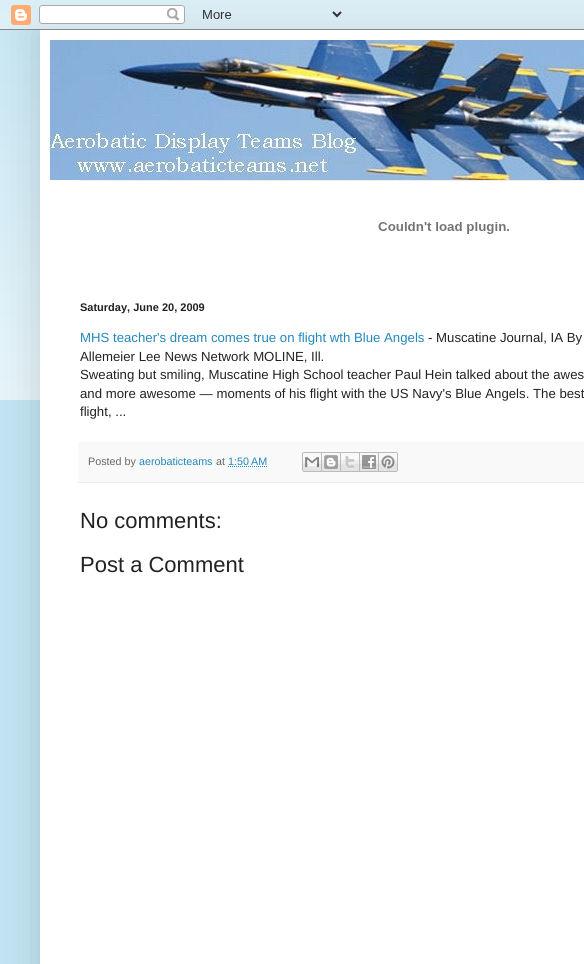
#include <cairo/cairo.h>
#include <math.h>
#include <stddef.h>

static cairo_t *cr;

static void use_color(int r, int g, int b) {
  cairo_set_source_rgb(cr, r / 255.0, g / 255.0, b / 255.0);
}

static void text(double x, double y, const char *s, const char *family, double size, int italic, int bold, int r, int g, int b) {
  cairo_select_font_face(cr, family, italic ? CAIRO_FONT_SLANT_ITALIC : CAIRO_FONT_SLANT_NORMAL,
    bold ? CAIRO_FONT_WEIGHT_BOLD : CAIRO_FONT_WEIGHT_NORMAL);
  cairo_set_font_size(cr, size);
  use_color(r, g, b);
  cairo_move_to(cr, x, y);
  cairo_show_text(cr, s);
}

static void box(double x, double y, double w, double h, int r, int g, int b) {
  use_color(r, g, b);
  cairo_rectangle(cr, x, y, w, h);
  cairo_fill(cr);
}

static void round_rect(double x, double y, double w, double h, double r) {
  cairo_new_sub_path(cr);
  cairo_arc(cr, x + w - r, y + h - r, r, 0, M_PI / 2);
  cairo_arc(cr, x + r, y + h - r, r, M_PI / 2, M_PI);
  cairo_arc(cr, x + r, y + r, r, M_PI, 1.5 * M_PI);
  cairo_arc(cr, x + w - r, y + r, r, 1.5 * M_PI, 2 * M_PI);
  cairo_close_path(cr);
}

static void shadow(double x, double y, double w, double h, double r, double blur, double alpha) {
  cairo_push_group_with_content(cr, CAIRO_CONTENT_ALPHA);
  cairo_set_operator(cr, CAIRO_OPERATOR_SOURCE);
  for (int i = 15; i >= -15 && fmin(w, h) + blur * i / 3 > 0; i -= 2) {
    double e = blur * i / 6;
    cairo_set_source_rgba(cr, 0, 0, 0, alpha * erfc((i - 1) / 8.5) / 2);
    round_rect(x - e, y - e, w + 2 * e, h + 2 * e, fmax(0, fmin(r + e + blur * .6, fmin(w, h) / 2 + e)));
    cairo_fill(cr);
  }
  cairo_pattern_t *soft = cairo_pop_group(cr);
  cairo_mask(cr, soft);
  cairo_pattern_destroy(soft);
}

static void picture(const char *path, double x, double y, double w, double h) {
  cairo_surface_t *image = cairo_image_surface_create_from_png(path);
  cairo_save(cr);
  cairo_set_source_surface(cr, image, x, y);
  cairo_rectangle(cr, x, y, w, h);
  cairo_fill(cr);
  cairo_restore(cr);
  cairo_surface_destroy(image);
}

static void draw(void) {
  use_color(194, 228, 242);
  cairo_paint(cr);
  picture("img_02.png", 0, 10, 584, 390);
  use_color(0, 0, 0);
  shadow(40, 30, 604, 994, 0, 20, 0.15);
  picture("img_01.png", 0, 0, 584, 30);
  box(40, 30, 544, 934, 255, 255, 255);
  picture("img_03.png", 50, 40, 534, 140);
  box(80, 180, 504, 1, 238, 238, 238);
  picture("img_04.png", 378, 222, 131, 12);
  box(78, 442, 506, 40, 249, 249, 249);
  box(78, 482, 506, 1, 238, 238, 238);
  cairo_new_path(cr);
  cairo_move_to(cr, 228, 466.5);
  cairo_line_to(cr, 267, 466.5);
  use_color(34, 136, 187);
  cairo_set_line_width(cr, 1);
  cairo_set_dash(cr, (double[]){1, 1}, 2, 0);
  cairo_stroke(cr);
  picture("img_05.png", 302, 452, 20, 20);
  picture("img_06.png", 322, 452, 19, 20);
  picture("img_07.png", 341, 452, 19, 20);
  picture("img_08.png", 360, 452, 19, 20);
  picture("img_09.png", 379, 452, 19, 20);
  text(80, 311, "Saturday, June 20, 2009", "Liberation Sans", 11, 0, 1, 34, 34, 34);
  text(80, 342, "MHS teacher's dream comes true on flight wth Blue Angels", "Liberation Sans", 13.2, 0, 0, 34, 136, 187);
  text(428, 342, "- Muscatine Journal, IA By", "Liberation Sans", 13.2, 0, 0, 34, 34, 34);
  text(80, 361, "Allemeier Lee News Network MOLINE, Ill.", "Liberation Sans", 13.2, 0, 0, 34, 34, 34);
  text(80, 379, "Sweating but smiling, Muscatine High School teacher Paul Hein talked about the awes", "Liberation Sans", 13.2, 0, 0, 34, 34, 34);
  text(80, 398, "and more awesome — moments of his flight with the US Navy's Blue Angels. The best", "Liberation Sans", 13.2, 0, 0, 34, 34, 34);
  text(80, 416, "flight, ...", "Liberation Sans", 13.2, 0, 0, 34, 34, 34);
  text(88, 465, "Posted by", "Liberation Sans", 10.75, 0, 0, 102, 102, 102);
  text(139, 465, "aerobaticteams", "Liberation Sans", 10.75, 0, 0, 34, 136, 187);
  text(216, 465, "at", "Liberation Sans", 10.75, 0, 0, 102, 102, 102);
  text(228, 465, "1:50 AM", "Liberation Sans", 10.75, 0, 0, 34, 136, 187);
  text(80, 528, "No comments:", "Liberation Sans", 22, 0, 0, 34, 34, 34);
  text(80, 572, "Post a Comment", "Liberation Sans", 22, 0, 0, 34, 34, 34);
}

int main(void) {
  cairo_surface_t *surface = cairo_image_surface_create(CAIRO_FORMAT_RGB24, 584, 964);
  cr = cairo_create(surface);
  cairo_font_options_t *options = cairo_font_options_create();
  cairo_font_options_set_hint_metrics(options, CAIRO_HINT_METRICS_OFF);
  cairo_font_options_set_hint_style(options, CAIRO_HINT_STYLE_NONE);
  cairo_set_font_options(cr, options);
  cairo_set_miter_limit(cr, 4);
  draw();
  cairo_surface_write_to_png(surface, "out.png");
  cairo_font_options_destroy(options);
  cairo_destroy(cr);
  cairo_surface_destroy(surface);
  return 0;
}
